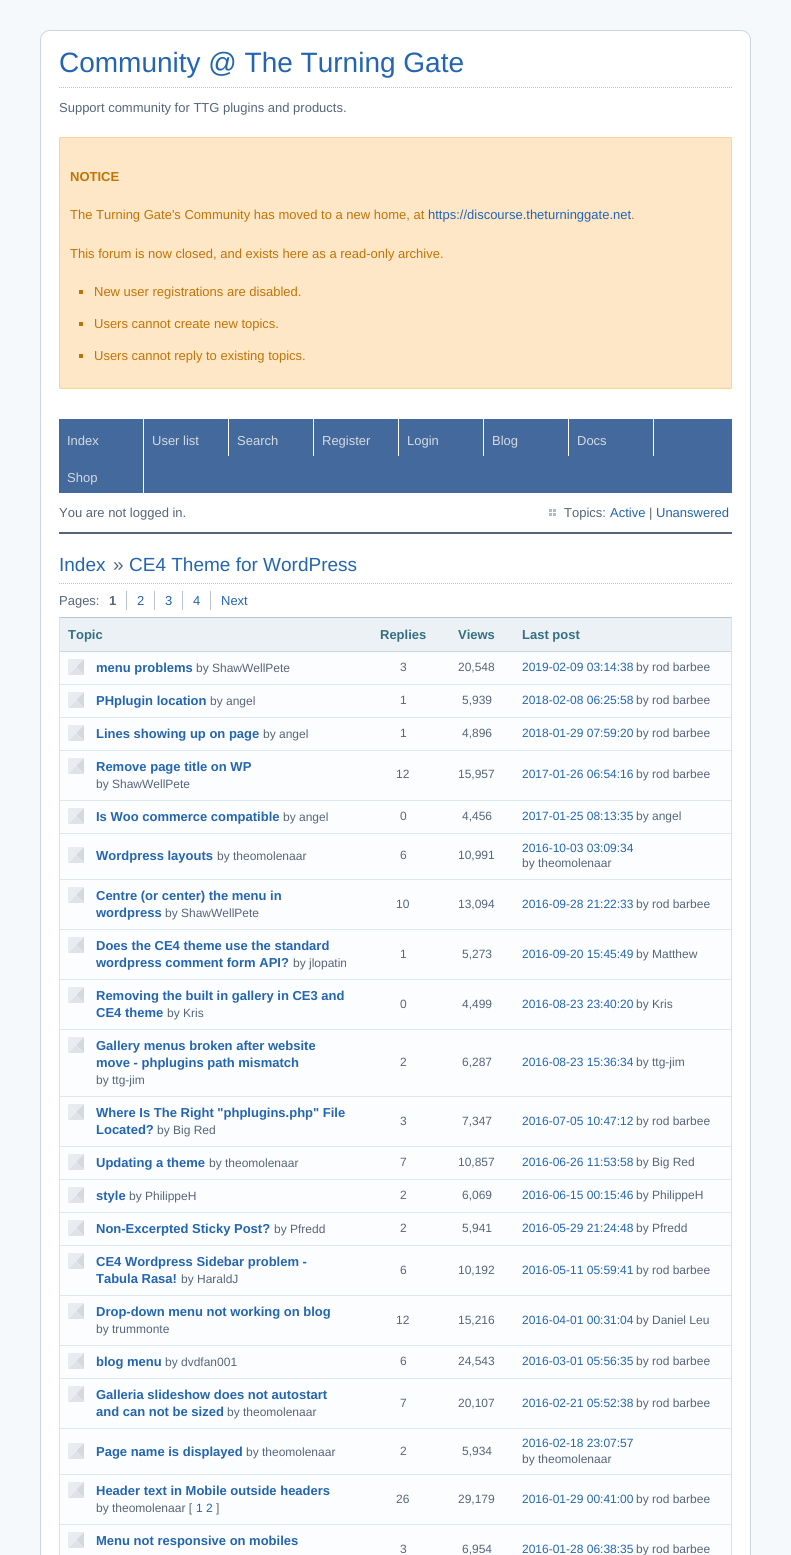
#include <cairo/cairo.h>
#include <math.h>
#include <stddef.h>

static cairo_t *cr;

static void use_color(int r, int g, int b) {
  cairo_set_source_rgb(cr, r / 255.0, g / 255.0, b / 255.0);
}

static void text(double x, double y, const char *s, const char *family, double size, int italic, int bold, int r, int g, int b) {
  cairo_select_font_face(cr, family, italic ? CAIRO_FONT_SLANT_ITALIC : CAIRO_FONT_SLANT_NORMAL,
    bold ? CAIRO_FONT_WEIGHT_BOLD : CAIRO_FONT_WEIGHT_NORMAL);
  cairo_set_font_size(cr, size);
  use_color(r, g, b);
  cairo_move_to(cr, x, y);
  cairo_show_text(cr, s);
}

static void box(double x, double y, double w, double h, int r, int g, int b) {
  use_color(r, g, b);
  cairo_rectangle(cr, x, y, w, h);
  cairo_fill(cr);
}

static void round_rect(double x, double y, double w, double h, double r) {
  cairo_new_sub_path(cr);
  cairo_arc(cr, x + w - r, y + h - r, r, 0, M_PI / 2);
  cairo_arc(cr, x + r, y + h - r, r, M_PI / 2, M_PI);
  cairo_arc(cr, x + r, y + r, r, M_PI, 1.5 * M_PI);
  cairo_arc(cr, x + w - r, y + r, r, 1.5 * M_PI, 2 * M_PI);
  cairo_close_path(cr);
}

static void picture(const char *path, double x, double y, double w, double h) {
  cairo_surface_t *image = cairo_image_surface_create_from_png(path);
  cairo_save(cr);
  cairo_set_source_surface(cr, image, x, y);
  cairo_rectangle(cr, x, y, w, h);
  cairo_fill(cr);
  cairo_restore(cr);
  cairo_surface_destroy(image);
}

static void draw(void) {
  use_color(246, 249, 252);
  cairo_paint(cr);
  use_color(255, 255, 255);
  round_rect(40.5, 30.5, 710, 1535, 9.5);
  cairo_fill_preserve(cr);
  use_color(202, 215, 225);
  cairo_set_line_width(cr, 1);
  cairo_stroke(cr);
  cairo_new_path(cr);
  cairo_move_to(cr, 59, 87.5);
  cairo_line_to(cr, 732, 87.5);
  use_color(185, 197, 206);
  cairo_set_dash(cr, (double[]){1, 1}, 2, 0);
  cairo_stroke(cr);
  use_color(254, 231, 199);
  round_rect(59.5, 137.5, 672, 251, 1.5);
  cairo_fill_preserve(cr);
  use_color(252, 210, 150);
  cairo_set_dash(cr, NULL, 0, 0);
  cairo_stroke(cr);
  box(79, 290, 4, 4, 193, 115, 5);
  box(79, 322, 4, 4, 193, 115, 5);
  box(79, 354, 4, 4, 193, 115, 5);
  box(59, 419, 673, 74, 68, 105, 156);
  box(143, 419, 1, 74, 255, 255, 255);
  box(228, 419, 1, 37, 255, 255, 255);
  box(313, 419, 1, 37, 255, 255, 255);
  box(398, 419, 1, 37, 255, 255, 255);
  box(483, 419, 1, 37, 255, 255, 255);
  box(568, 419, 1, 37, 255, 255, 255);
  box(653, 419, 1, 37, 255, 255, 255);
  picture("img_01.png", 549, 509, 7, 7);
  box(59, 532, 673, 2, 86, 101, 121);
  cairo_new_path(cr);
  cairo_move_to(cr, 59, 583.5);
  cairo_line_to(cr, 732, 583.5);
  use_color(185, 197, 206);
  cairo_set_dash(cr, (double[]){1, 1}, 2, 0);
  cairo_stroke(cr);
  box(126, 591, 1, 19, 185, 197, 206);
  box(154, 591, 1, 19, 185, 197, 206);
  box(182, 591, 1, 19, 185, 197, 206);
  box(210, 591, 1, 19, 185, 197, 206);
  box(60, 652, 671, 903, 252, 253, 254);
  box(59, 617, 673, 1, 185, 197, 206);
  box(731, 617, 1, 938, 217, 225, 231);
  box(59, 617, 1, 938, 217, 225, 231);
  box(60, 618, 671, 33, 235, 241, 245);
  box(60, 651, 671, 1, 202, 215, 225);
  use_color(232, 236, 241);
  cairo_new_path(cr);
  cairo_move_to(cr, 68, 659);
  cairo_line_to(cr, 84, 659);
  cairo_line_to(cr, 76, 667);
  cairo_close_path(cr);
  cairo_fill(cr);
  use_color(212, 217, 221);
  cairo_new_path(cr);
  cairo_move_to(cr, 84, 659);
  cairo_line_to(cr, 84, 675);
  cairo_line_to(cr, 76, 667);
  cairo_close_path(cr);
  cairo_fill(cr);
  use_color(223, 227, 232);
  cairo_new_path(cr);
  cairo_move_to(cr, 84, 675);
  cairo_line_to(cr, 68, 675);
  cairo_line_to(cr, 76, 667);
  cairo_close_path(cr);
  cairo_fill(cr);
  box(60, 684, 671, 1, 223, 230, 238);
  use_color(232, 236, 241);
  cairo_new_path(cr);
  cairo_move_to(cr, 68, 675);
  cairo_line_to(cr, 68, 659);
  cairo_line_to(cr, 76, 667);
  cairo_close_path(cr);
  cairo_move_to(cr, 68, 692);
  cairo_line_to(cr, 84, 692);
  cairo_line_to(cr, 76, 700);
  cairo_close_path(cr);
  cairo_fill(cr);
  use_color(212, 217, 221);
  cairo_new_path(cr);
  cairo_move_to(cr, 84, 692);
  cairo_line_to(cr, 84, 708);
  cairo_line_to(cr, 76, 700);
  cairo_close_path(cr);
  cairo_fill(cr);
  use_color(223, 227, 232);
  cairo_new_path(cr);
  cairo_move_to(cr, 84, 708);
  cairo_line_to(cr, 68, 708);
  cairo_line_to(cr, 76, 700);
  cairo_close_path(cr);
  cairo_fill(cr);
  box(60, 717, 671, 1, 223, 230, 238);
  use_color(232, 236, 241);
  cairo_new_path(cr);
  cairo_move_to(cr, 68, 708);
  cairo_line_to(cr, 68, 692);
  cairo_line_to(cr, 76, 700);
  cairo_close_path(cr);
  cairo_move_to(cr, 68, 725);
  cairo_line_to(cr, 84, 725);
  cairo_line_to(cr, 76, 733);
  cairo_close_path(cr);
  cairo_fill(cr);
  use_color(212, 217, 221);
  cairo_new_path(cr);
  cairo_move_to(cr, 84, 725);
  cairo_line_to(cr, 84, 741);
  cairo_line_to(cr, 76, 733);
  cairo_close_path(cr);
  cairo_fill(cr);
  use_color(223, 227, 232);
  cairo_new_path(cr);
  cairo_move_to(cr, 84, 741);
  cairo_line_to(cr, 68, 741);
  cairo_line_to(cr, 76, 733);
  cairo_close_path(cr);
  cairo_fill(cr);
  box(60, 750, 671, 1, 223, 230, 238);
  use_color(232, 236, 241);
  cairo_new_path(cr);
  cairo_move_to(cr, 68, 741);
  cairo_line_to(cr, 68, 725);
  cairo_line_to(cr, 76, 733);
  cairo_close_path(cr);
  cairo_move_to(cr, 68, 758);
  cairo_line_to(cr, 84, 758);
  cairo_line_to(cr, 76, 766);
  cairo_close_path(cr);
  cairo_fill(cr);
  use_color(212, 217, 221);
  cairo_new_path(cr);
  cairo_move_to(cr, 84, 758);
  cairo_line_to(cr, 84, 774);
  cairo_line_to(cr, 76, 766);
  cairo_close_path(cr);
  cairo_fill(cr);
  use_color(223, 227, 232);
  cairo_new_path(cr);
  cairo_move_to(cr, 84, 774);
  cairo_line_to(cr, 68, 774);
  cairo_line_to(cr, 76, 766);
  cairo_close_path(cr);
  cairo_fill(cr);
  box(60, 800, 671, 1, 223, 230, 238);
  use_color(232, 236, 241);
  cairo_new_path(cr);
  cairo_move_to(cr, 68, 774);
  cairo_line_to(cr, 68, 758);
  cairo_line_to(cr, 76, 766);
  cairo_close_path(cr);
  cairo_move_to(cr, 68, 808);
  cairo_line_to(cr, 84, 808);
  cairo_line_to(cr, 76, 816);
  cairo_close_path(cr);
  cairo_fill(cr);
  use_color(212, 217, 221);
  cairo_new_path(cr);
  cairo_move_to(cr, 84, 808);
  cairo_line_to(cr, 84, 824);
  cairo_line_to(cr, 76, 816);
  cairo_close_path(cr);
  cairo_fill(cr);
  use_color(223, 227, 232);
  cairo_new_path(cr);
  cairo_move_to(cr, 84, 824);
  cairo_line_to(cr, 68, 824);
  cairo_line_to(cr, 76, 816);
  cairo_close_path(cr);
  cairo_fill(cr);
  box(60, 833, 671, 1, 223, 230, 238);
  use_color(232, 236, 241);
  cairo_new_path(cr);
  cairo_move_to(cr, 68, 824);
  cairo_line_to(cr, 68, 808);
  cairo_line_to(cr, 76, 816);
  cairo_close_path(cr);
  cairo_move_to(cr, 68, 847);
  cairo_line_to(cr, 84, 847);
  cairo_line_to(cr, 76, 855);
  cairo_close_path(cr);
  cairo_fill(cr);
  use_color(212, 217, 221);
  cairo_new_path(cr);
  cairo_move_to(cr, 84, 847);
  cairo_line_to(cr, 84, 863);
  cairo_line_to(cr, 76, 855);
  cairo_close_path(cr);
  cairo_fill(cr);
  use_color(223, 227, 232);
  cairo_new_path(cr);
  cairo_move_to(cr, 84, 863);
  cairo_line_to(cr, 68, 863);
  cairo_line_to(cr, 76, 855);
  cairo_close_path(cr);
  cairo_fill(cr);
  box(60, 879, 671, 1, 223, 230, 238);
  use_color(232, 236, 241);
  cairo_new_path(cr);
  cairo_move_to(cr, 68, 863);
  cairo_line_to(cr, 68, 847);
  cairo_line_to(cr, 76, 855);
  cairo_close_path(cr);
  cairo_move_to(cr, 68, 887);
  cairo_line_to(cr, 84, 887);
  cairo_line_to(cr, 76, 895);
  cairo_close_path(cr);
  cairo_fill(cr);
  use_color(212, 217, 221);
  cairo_new_path(cr);
  cairo_move_to(cr, 84, 887);
  cairo_line_to(cr, 84, 903);
  cairo_line_to(cr, 76, 895);
  cairo_close_path(cr);
  cairo_fill(cr);
  use_color(223, 227, 232);
  cairo_new_path(cr);
  cairo_move_to(cr, 84, 903);
  cairo_line_to(cr, 68, 903);
  cairo_line_to(cr, 76, 895);
  cairo_close_path(cr);
  cairo_fill(cr);
  box(60, 929, 671, 1, 223, 230, 238);
  use_color(232, 236, 241);
  cairo_new_path(cr);
  cairo_move_to(cr, 68, 903);
  cairo_line_to(cr, 68, 887);
  cairo_line_to(cr, 76, 895);
  cairo_close_path(cr);
  cairo_move_to(cr, 68, 937);
  cairo_line_to(cr, 84, 937);
  cairo_line_to(cr, 76, 945);
  cairo_close_path(cr);
  cairo_fill(cr);
  use_color(212, 217, 221);
  cairo_new_path(cr);
  cairo_move_to(cr, 84, 937);
  cairo_line_to(cr, 84, 953);
  cairo_line_to(cr, 76, 945);
  cairo_close_path(cr);
  cairo_fill(cr);
  use_color(223, 227, 232);
  cairo_new_path(cr);
  cairo_move_to(cr, 84, 953);
  cairo_line_to(cr, 68, 953);
  cairo_line_to(cr, 76, 945);
  cairo_close_path(cr);
  cairo_fill(cr);
  box(60, 979, 671, 1, 223, 230, 238);
  use_color(232, 236, 241);
  cairo_new_path(cr);
  cairo_move_to(cr, 68, 953);
  cairo_line_to(cr, 68, 937);
  cairo_line_to(cr, 76, 945);
  cairo_close_path(cr);
  cairo_move_to(cr, 68, 987);
  cairo_line_to(cr, 84, 987);
  cairo_line_to(cr, 76, 995);
  cairo_close_path(cr);
  cairo_fill(cr);
  use_color(212, 217, 221);
  cairo_new_path(cr);
  cairo_move_to(cr, 84, 987);
  cairo_line_to(cr, 84, 1003);
  cairo_line_to(cr, 76, 995);
  cairo_close_path(cr);
  cairo_fill(cr);
  use_color(223, 227, 232);
  cairo_new_path(cr);
  cairo_move_to(cr, 84, 1003);
  cairo_line_to(cr, 68, 1003);
  cairo_line_to(cr, 76, 995);
  cairo_close_path(cr);
  cairo_fill(cr);
  box(60, 1029, 671, 1, 223, 230, 238);
  use_color(232, 236, 241);
  cairo_new_path(cr);
  cairo_move_to(cr, 68, 1003);
  cairo_line_to(cr, 68, 987);
  cairo_line_to(cr, 76, 995);
  cairo_close_path(cr);
  cairo_move_to(cr, 68, 1037);
  cairo_line_to(cr, 84, 1037);
  cairo_line_to(cr, 76, 1045);
  cairo_close_path(cr);
  cairo_fill(cr);
  use_color(212, 217, 221);
  cairo_new_path(cr);
  cairo_move_to(cr, 84, 1037);
  cairo_line_to(cr, 84, 1053);
  cairo_line_to(cr, 76, 1045);
  cairo_close_path(cr);
  cairo_fill(cr);
  use_color(223, 227, 232);
  cairo_new_path(cr);
  cairo_move_to(cr, 84, 1053);
  cairo_line_to(cr, 68, 1053);
  cairo_line_to(cr, 76, 1045);
  cairo_close_path(cr);
  cairo_fill(cr);
  use_color(232, 236, 241);
  cairo_new_path(cr);
  cairo_move_to(cr, 68, 1053);
  cairo_line_to(cr, 68, 1037);
  cairo_line_to(cr, 76, 1045);
  cairo_close_path(cr);
  cairo_fill(cr);
  box(60, 1096, 671, 1, 223, 230, 238);
  use_color(232, 236, 241);
  cairo_new_path(cr);
  cairo_move_to(cr, 68, 1104);
  cairo_line_to(cr, 84, 1104);
  cairo_line_to(cr, 76, 1112);
  cairo_close_path(cr);
  cairo_fill(cr);
  use_color(212, 217, 221);
  cairo_new_path(cr);
  cairo_move_to(cr, 84, 1104);
  cairo_line_to(cr, 84, 1120);
  cairo_line_to(cr, 76, 1112);
  cairo_close_path(cr);
  cairo_fill(cr);
  use_color(223, 227, 232);
  cairo_new_path(cr);
  cairo_move_to(cr, 84, 1120);
  cairo_line_to(cr, 68, 1120);
  cairo_line_to(cr, 76, 1112);
  cairo_close_path(cr);
  cairo_fill(cr);
  box(60, 1146, 671, 1, 223, 230, 238);
  use_color(232, 236, 241);
  cairo_new_path(cr);
  cairo_move_to(cr, 68, 1120);
  cairo_line_to(cr, 68, 1104);
  cairo_line_to(cr, 76, 1112);
  cairo_close_path(cr);
  cairo_move_to(cr, 68, 1154);
  cairo_line_to(cr, 84, 1154);
  cairo_line_to(cr, 76, 1162);
  cairo_close_path(cr);
  cairo_fill(cr);
  use_color(212, 217, 221);
  cairo_new_path(cr);
  cairo_move_to(cr, 84, 1154);
  cairo_line_to(cr, 84, 1170);
  cairo_line_to(cr, 76, 1162);
  cairo_close_path(cr);
  cairo_fill(cr);
  use_color(223, 227, 232);
  cairo_new_path(cr);
  cairo_move_to(cr, 84, 1170);
  cairo_line_to(cr, 68, 1170);
  cairo_line_to(cr, 76, 1162);
  cairo_close_path(cr);
  cairo_fill(cr);
  box(60, 1179, 671, 1, 223, 230, 238);
  use_color(232, 236, 241);
  cairo_new_path(cr);
  cairo_move_to(cr, 68, 1170);
  cairo_line_to(cr, 68, 1154);
  cairo_line_to(cr, 76, 1162);
  cairo_close_path(cr);
  cairo_move_to(cr, 68, 1187);
  cairo_line_to(cr, 84, 1187);
  cairo_line_to(cr, 76, 1195);
  cairo_close_path(cr);
  cairo_fill(cr);
  use_color(212, 217, 221);
  cairo_new_path(cr);
  cairo_move_to(cr, 84, 1187);
  cairo_line_to(cr, 84, 1203);
  cairo_line_to(cr, 76, 1195);
  cairo_close_path(cr);
  cairo_fill(cr);
  use_color(223, 227, 232);
  cairo_new_path(cr);
  cairo_move_to(cr, 84, 1203);
  cairo_line_to(cr, 68, 1203);
  cairo_line_to(cr, 76, 1195);
  cairo_close_path(cr);
  cairo_fill(cr);
  box(60, 1212, 671, 1, 223, 230, 238);
  use_color(232, 236, 241);
  cairo_new_path(cr);
  cairo_move_to(cr, 68, 1203);
  cairo_line_to(cr, 68, 1187);
  cairo_line_to(cr, 76, 1195);
  cairo_close_path(cr);
  cairo_move_to(cr, 68, 1220);
  cairo_line_to(cr, 84, 1220);
  cairo_line_to(cr, 76, 1228);
  cairo_close_path(cr);
  cairo_fill(cr);
  use_color(212, 217, 221);
  cairo_new_path(cr);
  cairo_move_to(cr, 84, 1220);
  cairo_line_to(cr, 84, 1236);
  cairo_line_to(cr, 76, 1228);
  cairo_close_path(cr);
  cairo_fill(cr);
  use_color(223, 227, 232);
  cairo_new_path(cr);
  cairo_move_to(cr, 84, 1236);
  cairo_line_to(cr, 68, 1236);
  cairo_line_to(cr, 76, 1228);
  cairo_close_path(cr);
  cairo_fill(cr);
  box(60, 1245, 671, 1, 223, 230, 238);
  use_color(232, 236, 241);
  cairo_new_path(cr);
  cairo_move_to(cr, 68, 1236);
  cairo_line_to(cr, 68, 1220);
  cairo_line_to(cr, 76, 1228);
  cairo_close_path(cr);
  cairo_move_to(cr, 68, 1253);
  cairo_line_to(cr, 84, 1253);
  cairo_line_to(cr, 76, 1261);
  cairo_close_path(cr);
  cairo_fill(cr);
  use_color(212, 217, 221);
  cairo_new_path(cr);
  cairo_move_to(cr, 84, 1253);
  cairo_line_to(cr, 84, 1269);
  cairo_line_to(cr, 76, 1261);
  cairo_close_path(cr);
  cairo_fill(cr);
  use_color(223, 227, 232);
  cairo_new_path(cr);
  cairo_move_to(cr, 84, 1269);
  cairo_line_to(cr, 68, 1269);
  cairo_line_to(cr, 76, 1261);
  cairo_close_path(cr);
  cairo_fill(cr);
  box(60, 1295, 671, 1, 223, 230, 238);
  use_color(232, 236, 241);
  cairo_new_path(cr);
  cairo_move_to(cr, 68, 1269);
  cairo_line_to(cr, 68, 1253);
  cairo_line_to(cr, 76, 1261);
  cairo_close_path(cr);
  cairo_move_to(cr, 68, 1303);
  cairo_line_to(cr, 84, 1303);
  cairo_line_to(cr, 76, 1311);
  cairo_close_path(cr);
  cairo_fill(cr);
  use_color(212, 217, 221);
  cairo_new_path(cr);
  cairo_move_to(cr, 84, 1303);
  cairo_line_to(cr, 84, 1319);
  cairo_line_to(cr, 76, 1311);
  cairo_close_path(cr);
  cairo_fill(cr);
  use_color(223, 227, 232);
  cairo_new_path(cr);
  cairo_move_to(cr, 84, 1319);
  cairo_line_to(cr, 68, 1319);
  cairo_line_to(cr, 76, 1311);
  cairo_close_path(cr);
  cairo_fill(cr);
  box(60, 1345, 671, 1, 223, 230, 238);
  use_color(232, 236, 241);
  cairo_new_path(cr);
  cairo_move_to(cr, 68, 1319);
  cairo_line_to(cr, 68, 1303);
  cairo_line_to(cr, 76, 1311);
  cairo_close_path(cr);
  cairo_move_to(cr, 68, 1353);
  cairo_line_to(cr, 84, 1353);
  cairo_line_to(cr, 76, 1361);
  cairo_close_path(cr);
  cairo_fill(cr);
  use_color(212, 217, 221);
  cairo_new_path(cr);
  cairo_move_to(cr, 84, 1353);
  cairo_line_to(cr, 84, 1369);
  cairo_line_to(cr, 76, 1361);
  cairo_close_path(cr);
  cairo_fill(cr);
  use_color(223, 227, 232);
  cairo_new_path(cr);
  cairo_move_to(cr, 84, 1369);
  cairo_line_to(cr, 68, 1369);
  cairo_line_to(cr, 76, 1361);
  cairo_close_path(cr);
  cairo_fill(cr);
  box(60, 1378, 671, 1, 223, 230, 238);
  use_color(232, 236, 241);
  cairo_new_path(cr);
  cairo_move_to(cr, 68, 1369);
  cairo_line_to(cr, 68, 1353);
  cairo_line_to(cr, 76, 1361);
  cairo_close_path(cr);
  cairo_move_to(cr, 68, 1386);
  cairo_line_to(cr, 84, 1386);
  cairo_line_to(cr, 76, 1394);
  cairo_close_path(cr);
  cairo_fill(cr);
  use_color(212, 217, 221);
  cairo_new_path(cr);
  cairo_move_to(cr, 84, 1386);
  cairo_line_to(cr, 84, 1402);
  cairo_line_to(cr, 76, 1394);
  cairo_close_path(cr);
  cairo_fill(cr);
  use_color(223, 227, 232);
  cairo_new_path(cr);
  cairo_move_to(cr, 84, 1402);
  cairo_line_to(cr, 68, 1402);
  cairo_line_to(cr, 76, 1394);
  cairo_close_path(cr);
  cairo_fill(cr);
  use_color(232, 236, 241);
  cairo_new_path(cr);
  cairo_move_to(cr, 68, 1402);
  cairo_line_to(cr, 68, 1386);
  cairo_line_to(cr, 76, 1394);
  cairo_close_path(cr);
  cairo_fill(cr);
  box(60, 1428, 671, 1, 223, 230, 238);
  use_color(232, 236, 241);
  cairo_new_path(cr);
  cairo_move_to(cr, 68, 1443);
  cairo_line_to(cr, 84, 1443);
  cairo_line_to(cr, 76, 1451);
  cairo_close_path(cr);
  cairo_fill(cr);
  use_color(212, 217, 221);
  cairo_new_path(cr);
  cairo_move_to(cr, 84, 1443);
  cairo_line_to(cr, 84, 1459);
  cairo_line_to(cr, 76, 1451);
  cairo_close_path(cr);
  cairo_fill(cr);
  use_color(223, 227, 232);
  cairo_new_path(cr);
  cairo_move_to(cr, 84, 1459);
  cairo_line_to(cr, 68, 1459);
  cairo_line_to(cr, 76, 1451);
  cairo_close_path(cr);
  cairo_fill(cr);
  box(60, 1474, 671, 1, 223, 230, 238);
  use_color(232, 236, 241);
  cairo_new_path(cr);
  cairo_move_to(cr, 68, 1459);
  cairo_line_to(cr, 68, 1443);
  cairo_line_to(cr, 76, 1451);
  cairo_close_path(cr);
  cairo_move_to(cr, 68, 1482);
  cairo_line_to(cr, 84, 1482);
  cairo_line_to(cr, 76, 1490);
  cairo_close_path(cr);
  cairo_fill(cr);
  use_color(212, 217, 221);
  cairo_new_path(cr);
  cairo_move_to(cr, 84, 1482);
  cairo_line_to(cr, 84, 1498);
  cairo_line_to(cr, 76, 1490);
  cairo_close_path(cr);
  cairo_fill(cr);
  use_color(223, 227, 232);
  cairo_new_path(cr);
  cairo_move_to(cr, 84, 1498);
  cairo_line_to(cr, 68, 1498);
  cairo_line_to(cr, 76, 1490);
  cairo_close_path(cr);
  cairo_fill(cr);
  box(60, 1524, 671, 1, 223, 230, 238);
  use_color(232, 236, 241);
  cairo_new_path(cr);
  cairo_move_to(cr, 68, 1498);
  cairo_line_to(cr, 68, 1482);
  cairo_line_to(cr, 76, 1490);
  cairo_close_path(cr);
  cairo_move_to(cr, 68, 1532);
  cairo_line_to(cr, 84, 1532);
  cairo_line_to(cr, 76, 1540);
  cairo_close_path(cr);
  cairo_fill(cr);
  use_color(212, 217, 221);
  cairo_new_path(cr);
  cairo_move_to(cr, 84, 1532);
  cairo_line_to(cr, 84, 1548);
  cairo_line_to(cr, 76, 1540);
  cairo_close_path(cr);
  cairo_fill(cr);
  use_color(223, 227, 232);
  cairo_new_path(cr);
  cairo_move_to(cr, 84, 1548);
  cairo_line_to(cr, 68, 1548);
  cairo_line_to(cr, 76, 1540);
  cairo_close_path(cr);
  cairo_fill(cr);
  use_color(232, 236, 241);
  cairo_new_path(cr);
  cairo_move_to(cr, 68, 1548);
  cairo_line_to(cr, 68, 1532);
  cairo_line_to(cr, 76, 1540);
  cairo_close_path(cr);
  cairo_fill(cr);
  text(59, 72, "Community @ The Turning Gate", "Liberation Sans", 28, 0, 0, 35, 101, 176);
  text(59, 112, "Support community for TTG plugins and products.", "Liberation Sans", 13, 0, 0, 86, 101, 121);
  text(70, 181, "NOTICE", "Liberation Sans", 13, 0, 1, 193, 115, 5);
  text(70, 219, "The Turning Gate's Community has moved to a new home, at", "Liberation Sans", 13, 0, 0, 193, 115, 5);
  text(428, 219, "https://discourse.theturninggate.net", "Liberation Sans", 13, 0, 0, 35, 101, 176);
  text(631, 219, ".", "Liberation Sans", 13, 0, 0, 193, 115, 5);
  text(70, 258, "This forum is now closed, and exists here as a read-only archive.", "Liberation Sans", 13, 0, 0, 193, 115, 5);
  text(94, 296, "New user registrations are disabled.", "Liberation Sans", 13, 0, 0, 193, 115, 5);
  text(94, 328, "Users cannot create new topics.", "Liberation Sans", 13, 0, 0, 193, 115, 5);
  text(94, 360, "Users cannot reply to existing topics.", "Liberation Sans", 13, 0, 0, 193, 115, 5);
  text(67, 445, "Index", "Liberation Sans", 13, 0, 0, 212, 218, 226);
  text(152, 445, "User list", "Liberation Sans", 13, 0, 0, 212, 218, 226);
  text(237, 445, "Search", "Liberation Sans", 13, 0, 0, 212, 218, 226);
  text(322, 445, "Register", "Liberation Sans", 13, 0, 0, 212, 218, 226);
  text(407, 445, "Login", "Liberation Sans", 13, 0, 0, 212, 218, 226);
  text(492, 445, "Blog", "Liberation Sans", 13, 0, 0, 212, 218, 226);
  text(577, 445, "Docs", "Liberation Sans", 13, 0, 0, 212, 218, 226);
  text(67, 482, "Shop", "Liberation Sans", 13, 0, 0, 212, 218, 226);
  text(59, 517, "You are not logged in.", "Liberation Sans", 13, 0, 0, 86, 101, 121);
  text(564, 517, "Topics:", "Liberation Sans", 13, 0, 0, 86, 101, 121);
  text(610, 517, "Active", "Liberation Sans", 13, 0, 0, 35, 101, 176);
  text(649, 517, "|", "Liberation Sans", 13, 0, 0, 86, 101, 121);
  text(656, 517, "Unanswered", "Liberation Sans", 13, 0, 0, 35, 101, 176);
  text(59, 571, "Index", "Liberation Sans", 19, 0, 0, 35, 101, 176);
  text(113, 571, "»", "Liberation Sans", 19, 0, 0, 86, 101, 121);
  text(129, 571, "CE4 Theme for WordPress", "Liberation Sans", 19, 0, 0, 35, 101, 176);
  text(59, 605, "Pages:", "Liberation Sans", 13, 0, 0, 86, 101, 121);
  text(109, 605, "1", "Liberation Sans", 13, 0, 1, 86, 101, 121);
  text(137, 605, "2", "Liberation Sans", 13, 0, 0, 35, 101, 176);
  text(165, 605, "3", "Liberation Sans", 13, 0, 0, 35, 101, 176);
  text(193, 605, "4", "Liberation Sans", 13, 0, 0, 35, 101, 176);
  text(221, 605, "Next", "Liberation Sans", 13, 0, 0, 35, 101, 176);
  text(68, 639, "Topic", "Liberation Sans", 13, 0, 1, 53, 112, 130);
  text(380, 639, "Replies", "Liberation Sans", 13, 0, 1, 53, 112, 130);
  text(458, 639, "Views", "Liberation Sans", 13, 0, 1, 53, 112, 130);
  text(522, 639, "Last post", "Liberation Sans", 13, 0, 1, 53, 112, 130);
  text(96, 672, "menu problems", "Liberation Sans", 13, 0, 1, 35, 101, 176);
  text(196, 672, "by ShawWellPete", "Liberation Sans", 12, 0, 0, 86, 101, 121);
  text(400, 671, "3", "Liberation Sans", 12, 0, 0, 86, 101, 121);
  text(458, 671, "20,548", "Liberation Sans", 12, 0, 0, 86, 101, 121);
  text(522, 671, "2019-02-09 03:14:38", "Liberation Sans", 12, 0, 0, 35, 101, 176);
  text(636, 671, "by rod barbee", "Liberation Sans", 12, 0, 0, 86, 101, 121);
  text(96, 705, "PHplugin location", "Liberation Sans", 13, 0, 1, 35, 101, 176);
  text(210, 705, "by angel", "Liberation Sans", 12, 0, 0, 86, 101, 121);
  text(400, 704, "1", "Liberation Sans", 12, 0, 0, 86, 101, 121);
  text(462, 704, "5,939", "Liberation Sans", 12, 0, 0, 86, 101, 121);
  text(522, 704, "2018-02-08 06:25:58", "Liberation Sans", 12, 0, 0, 35, 101, 176);
  text(636, 704, "by rod barbee", "Liberation Sans", 12, 0, 0, 86, 101, 121);
  text(96, 738, "Lines showing up on page", "Liberation Sans", 13, 0, 1, 35, 101, 176);
  text(263, 738, "by angel", "Liberation Sans", 12, 0, 0, 86, 101, 121);
  text(400, 737, "1", "Liberation Sans", 12, 0, 0, 86, 101, 121);
  text(462, 737, "4,896", "Liberation Sans", 12, 0, 0, 86, 101, 121);
  text(522, 737, "2018-01-29 07:59:20", "Liberation Sans", 12, 0, 0, 35, 101, 176);
  text(636, 737, "by rod barbee", "Liberation Sans", 12, 0, 0, 86, 101, 121);
  text(96, 771, "Remove page title on WP", "Liberation Sans", 13, 0, 1, 35, 101, 176);
  text(96, 788, "by ShawWellPete", "Liberation Sans", 12, 0, 0, 86, 101, 121);
  text(396, 778, "12", "Liberation Sans", 12, 0, 0, 86, 101, 121);
  text(458, 778, "15,957", "Liberation Sans", 12, 0, 0, 86, 101, 121);
  text(522, 778, "2017-01-26 06:54:16", "Liberation Sans", 12, 0, 0, 35, 101, 176);
  text(636, 778, "by rod barbee", "Liberation Sans", 12, 0, 0, 86, 101, 121);
  text(96, 821, "Is Woo commerce compatible", "Liberation Sans", 13, 0, 1, 35, 101, 176);
  text(283, 821, "by angel", "Liberation Sans", 12, 0, 0, 86, 101, 121);
  text(400, 820, "0", "Liberation Sans", 12, 0, 0, 86, 101, 121);
  text(462, 820, "4,456", "Liberation Sans", 12, 0, 0, 86, 101, 121);
  text(522, 820, "2017-01-25 08:13:35", "Liberation Sans", 12, 0, 0, 35, 101, 176);
  text(636, 820, "by angel", "Liberation Sans", 12, 0, 0, 86, 101, 121);
  text(96, 860, "Wordpress layouts", "Liberation Sans", 13, 0, 1, 35, 101, 176);
  text(217, 860, "by theomolenaar", "Liberation Sans", 12, 0, 0, 86, 101, 121);
  text(400, 859, "6", "Liberation Sans", 12, 0, 0, 86, 101, 121);
  text(458, 859, "10,991", "Liberation Sans", 12, 0, 0, 86, 101, 121);
  text(522, 852, "2016-10-03 03:09:34", "Liberation Sans", 12, 0, 0, 35, 101, 176);
  text(522, 867, "by theomolenaar", "Liberation Sans", 12, 0, 0, 86, 101, 121);
  text(96, 900, "Centre (or center) the menu in", "Liberation Sans", 13, 0, 1, 35, 101, 176);
  text(96, 917, "wordpress", "Liberation Sans", 13, 0, 1, 35, 101, 176);
  text(165, 917, "by ShawWellPete", "Liberation Sans", 12, 0, 0, 86, 101, 121);
  text(396, 908, "10", "Liberation Sans", 12, 0, 0, 86, 101, 121);
  text(458, 908, "13,094", "Liberation Sans", 12, 0, 0, 86, 101, 121);
  text(522, 908, "2016-09-28 21:22:33", "Liberation Sans", 12, 0, 0, 35, 101, 176);
  text(636, 908, "by rod barbee", "Liberation Sans", 12, 0, 0, 86, 101, 121);
  text(96, 950, "Does the CE4 theme use the standard", "Liberation Sans", 13, 0, 1, 35, 101, 176);
  text(96, 967, "wordpress comment form API?", "Liberation Sans", 13, 0, 1, 35, 101, 176);
  text(293, 967, "by jlopatin", "Liberation Sans", 12, 0, 0, 86, 101, 121);
  text(400, 958, "1", "Liberation Sans", 12, 0, 0, 86, 101, 121);
  text(462, 958, "5,273", "Liberation Sans", 12, 0, 0, 86, 101, 121);
  text(522, 958, "2016-09-20 15:45:49", "Liberation Sans", 12, 0, 0, 35, 101, 176);
  text(636, 958, "by Matthew", "Liberation Sans", 12, 0, 0, 86, 101, 121);
  text(96, 1000, "Removing the built in gallery in CE3 and", "Liberation Sans", 13, 0, 1, 35, 101, 176);
  text(96, 1017, "CE4 theme", "Liberation Sans", 13, 0, 1, 35, 101, 176);
  text(167, 1017, "by Kris", "Liberation Sans", 12, 0, 0, 86, 101, 121);
  text(400, 1008, "0", "Liberation Sans", 12, 0, 0, 86, 101, 121);
  text(462, 1008, "4,499", "Liberation Sans", 12, 0, 0, 86, 101, 121);
  text(522, 1008, "2016-08-23 23:40:20", "Liberation Sans", 12, 0, 0, 35, 101, 176);
  text(636, 1008, "by Kris", "Liberation Sans", 12, 0, 0, 86, 101, 121);
  text(96, 1050, "Gallery menus broken after website", "Liberation Sans", 13, 0, 1, 35, 101, 176);
  text(96, 1067, "move - phplugins path mismatch", "Liberation Sans", 13, 0, 1, 35, 101, 176);
  text(96, 1084, "by ttg-jim", "Liberation Sans", 12, 0, 0, 86, 101, 121);
  text(400, 1066, "2", "Liberation Sans", 12, 0, 0, 86, 101, 121);
  text(462, 1066, "6,287", "Liberation Sans", 12, 0, 0, 86, 101, 121);
  text(522, 1066, "2016-08-23 15:36:34", "Liberation Sans", 12, 0, 0, 35, 101, 176);
  text(636, 1066, "by ttg-jim", "Liberation Sans", 12, 0, 0, 86, 101, 121);
  text(96, 1117, "Where Is The Right \"phplugins.php\" File", "Liberation Sans", 13, 0, 1, 35, 101, 176);
  text(96, 1134, "Located?", "Liberation Sans", 13, 0, 1, 35, 101, 176);
  text(157, 1134, "by Big Red", "Liberation Sans", 12, 0, 0, 86, 101, 121);
  text(400, 1125, "3", "Liberation Sans", 12, 0, 0, 86, 101, 121);
  text(462, 1125, "7,347", "Liberation Sans", 12, 0, 0, 86, 101, 121);
  text(522, 1125, "2016-07-05 10:47:12", "Liberation Sans", 12, 0, 0, 35, 101, 176);
  text(636, 1125, "by rod barbee", "Liberation Sans", 12, 0, 0, 86, 101, 121);
  text(96, 1167, "Updating a theme", "Liberation Sans", 13, 0, 1, 35, 101, 176);
  text(209, 1167, "by theomolenaar", "Liberation Sans", 12, 0, 0, 86, 101, 121);
  text(400, 1166, "7", "Liberation Sans", 12, 0, 0, 86, 101, 121);
  text(458, 1166, "10,857", "Liberation Sans", 12, 0, 0, 86, 101, 121);
  text(522, 1166, "2016-06-26 11:53:58", "Liberation Sans", 12, 0, 0, 35, 101, 176);
  text(636, 1166, "by Big Red", "Liberation Sans", 12, 0, 0, 86, 101, 121);
  text(96, 1200, "style", "Liberation Sans", 13, 0, 1, 35, 101, 176);
  text(129, 1200, "by PhilippeH", "Liberation Sans", 12, 0, 0, 86, 101, 121);
  text(400, 1199, "2", "Liberation Sans", 12, 0, 0, 86, 101, 121);
  text(462, 1199, "6,069", "Liberation Sans", 12, 0, 0, 86, 101, 121);
  text(522, 1199, "2016-06-15 00:15:46", "Liberation Sans", 12, 0, 0, 35, 101, 176);
  text(636, 1199, "by PhilippeH", "Liberation Sans", 12, 0, 0, 86, 101, 121);
  text(96, 1233, "Non-Excerpted Sticky Post?", "Liberation Sans", 13, 0, 1, 35, 101, 176);
  text(274, 1233, "by Pfredd", "Liberation Sans", 12, 0, 0, 86, 101, 121);
  text(400, 1232, "2", "Liberation Sans", 12, 0, 0, 86, 101, 121);
  text(462, 1232, "5,941", "Liberation Sans", 12, 0, 0, 86, 101, 121);
  text(522, 1232, "2016-05-29 21:24:48", "Liberation Sans", 12, 0, 0, 35, 101, 176);
  text(636, 1232, "by Pfredd", "Liberation Sans", 12, 0, 0, 86, 101, 121);
  text(96, 1266, "CE4 Wordpress Sidebar problem -", "Liberation Sans", 13, 0, 1, 35, 101, 176);
  text(96, 1283, "Tabula Rasa!", "Liberation Sans", 13, 0, 1, 35, 101, 176);
  text(181, 1283, "by HaraldJ", "Liberation Sans", 12, 0, 0, 86, 101, 121);
  text(400, 1274, "6", "Liberation Sans", 12, 0, 0, 86, 101, 121);
  text(458, 1274, "10,192", "Liberation Sans", 12, 0, 0, 86, 101, 121);
  text(522, 1274, "2016-05-11 05:59:41", "Liberation Sans", 12, 0, 0, 35, 101, 176);
  text(636, 1274, "by rod barbee", "Liberation Sans", 12, 0, 0, 86, 101, 121);
  text(96, 1316, "Drop-down menu not working on blog", "Liberation Sans", 13, 0, 1, 35, 101, 176);
  text(96, 1333, "by trummonte", "Liberation Sans", 12, 0, 0, 86, 101, 121);
  text(396, 1324, "12", "Liberation Sans", 12, 0, 0, 86, 101, 121);
  text(458, 1324, "15,216", "Liberation Sans", 12, 0, 0, 86, 101, 121);
  text(522, 1324, "2016-04-01 00:31:04", "Liberation Sans", 12, 0, 0, 35, 101, 176);
  text(636, 1324, "by Daniel Leu", "Liberation Sans", 12, 0, 0, 86, 101, 121);
  text(96, 1366, "blog menu", "Liberation Sans", 13, 0, 1, 35, 101, 176);
  text(165, 1366, "by dvdfan001", "Liberation Sans", 12, 0, 0, 86, 101, 121);
  text(400, 1365, "6", "Liberation Sans", 12, 0, 0, 86, 101, 121);
  text(458, 1365, "24,543", "Liberation Sans", 12, 0, 0, 86, 101, 121);
  text(522, 1365, "2016-03-01 05:56:35", "Liberation Sans", 12, 0, 0, 35, 101, 176);
  text(636, 1365, "by rod barbee", "Liberation Sans", 12, 0, 0, 86, 101, 121);
  text(96, 1399, "Galleria slideshow does not autostart", "Liberation Sans", 13, 0, 1, 35, 101, 176);
  text(96, 1416, "and can not be sized", "Liberation Sans", 13, 0, 1, 35, 101, 176);
  text(227, 1416, "by theomolenaar", "Liberation Sans", 12, 0, 0, 86, 101, 121);
  text(400, 1407, "7", "Liberation Sans", 12, 0, 0, 86, 101, 121);
  text(458, 1407, "20,107", "Liberation Sans", 12, 0, 0, 86, 101, 121);
  text(522, 1407, "2016-02-21 05:52:38", "Liberation Sans", 12, 0, 0, 35, 101, 176);
  text(636, 1407, "by rod barbee", "Liberation Sans", 12, 0, 0, 86, 101, 121);
  text(96, 1456, "Page name is displayed", "Liberation Sans", 13, 0, 1, 35, 101, 176);
  text(246, 1456, "by theomolenaar", "Liberation Sans", 12, 0, 0, 86, 101, 121);
  text(400, 1455, "2", "Liberation Sans", 12, 0, 0, 86, 101, 121);
  text(462, 1455, "5,934", "Liberation Sans", 12, 0, 0, 86, 101, 121);
  text(522, 1447, "2016-02-18 23:07:57", "Liberation Sans", 12, 0, 0, 35, 101, 176);
  text(522, 1463, "by theomolenaar", "Liberation Sans", 12, 0, 0, 86, 101, 121);
  text(96, 1495, "Header text in Mobile outside headers", "Liberation Sans", 13, 0, 1, 35, 101, 176);
  text(96, 1512, "by theomolenaar [", "Liberation Sans", 12, 0, 0, 86, 101, 121);
  text(196, 1512, "1 2", "Liberation Sans", 12, 0, 0, 35, 101, 176);
  text(216, 1512, "]", "Liberation Sans", 12, 0, 0, 86, 101, 121);
  text(396, 1503, "26", "Liberation Sans", 12, 0, 0, 86, 101, 121);
  text(458, 1503, "29,179", "Liberation Sans", 12, 0, 0, 86, 101, 121);
  text(522, 1503, "2016-01-29 00:41:00", "Liberation Sans", 12, 0, 0, 35, 101, 176);
  text(636, 1503, "by rod barbee", "Liberation Sans", 12, 0, 0, 86, 101, 121);
  text(96, 1545, "Menu not responsive on mobiles", "Liberation Sans", 13, 0, 1, 35, 101, 176);
  text(400, 1553, "3", "Liberation Sans", 12, 0, 0, 86, 101, 121);
  text(462, 1553, "6,954", "Liberation Sans", 12, 0, 0, 86, 101, 121);
  text(522, 1553, "2016-01-28 06:38:35", "Liberation Sans", 12, 0, 0, 35, 101, 176);
  text(636, 1553, "by rod barbee", "Liberation Sans", 12, 0, 0, 86, 101, 121);
}

int main(void) {
  cairo_surface_t *surface = cairo_image_surface_create(CAIRO_FORMAT_RGB24, 791, 1555);
  cr = cairo_create(surface);
  cairo_font_options_t *options = cairo_font_options_create();
  cairo_font_options_set_hint_metrics(options, CAIRO_HINT_METRICS_OFF);
  cairo_font_options_set_hint_style(options, CAIRO_HINT_STYLE_NONE);
  cairo_set_font_options(cr, options);
  cairo_set_miter_limit(cr, 4);
  draw();
  cairo_surface_write_to_png(surface, "out.png");
  cairo_font_options_destroy(options);
  cairo_destroy(cr);
  cairo_surface_destroy(surface);
  return 0;
}
